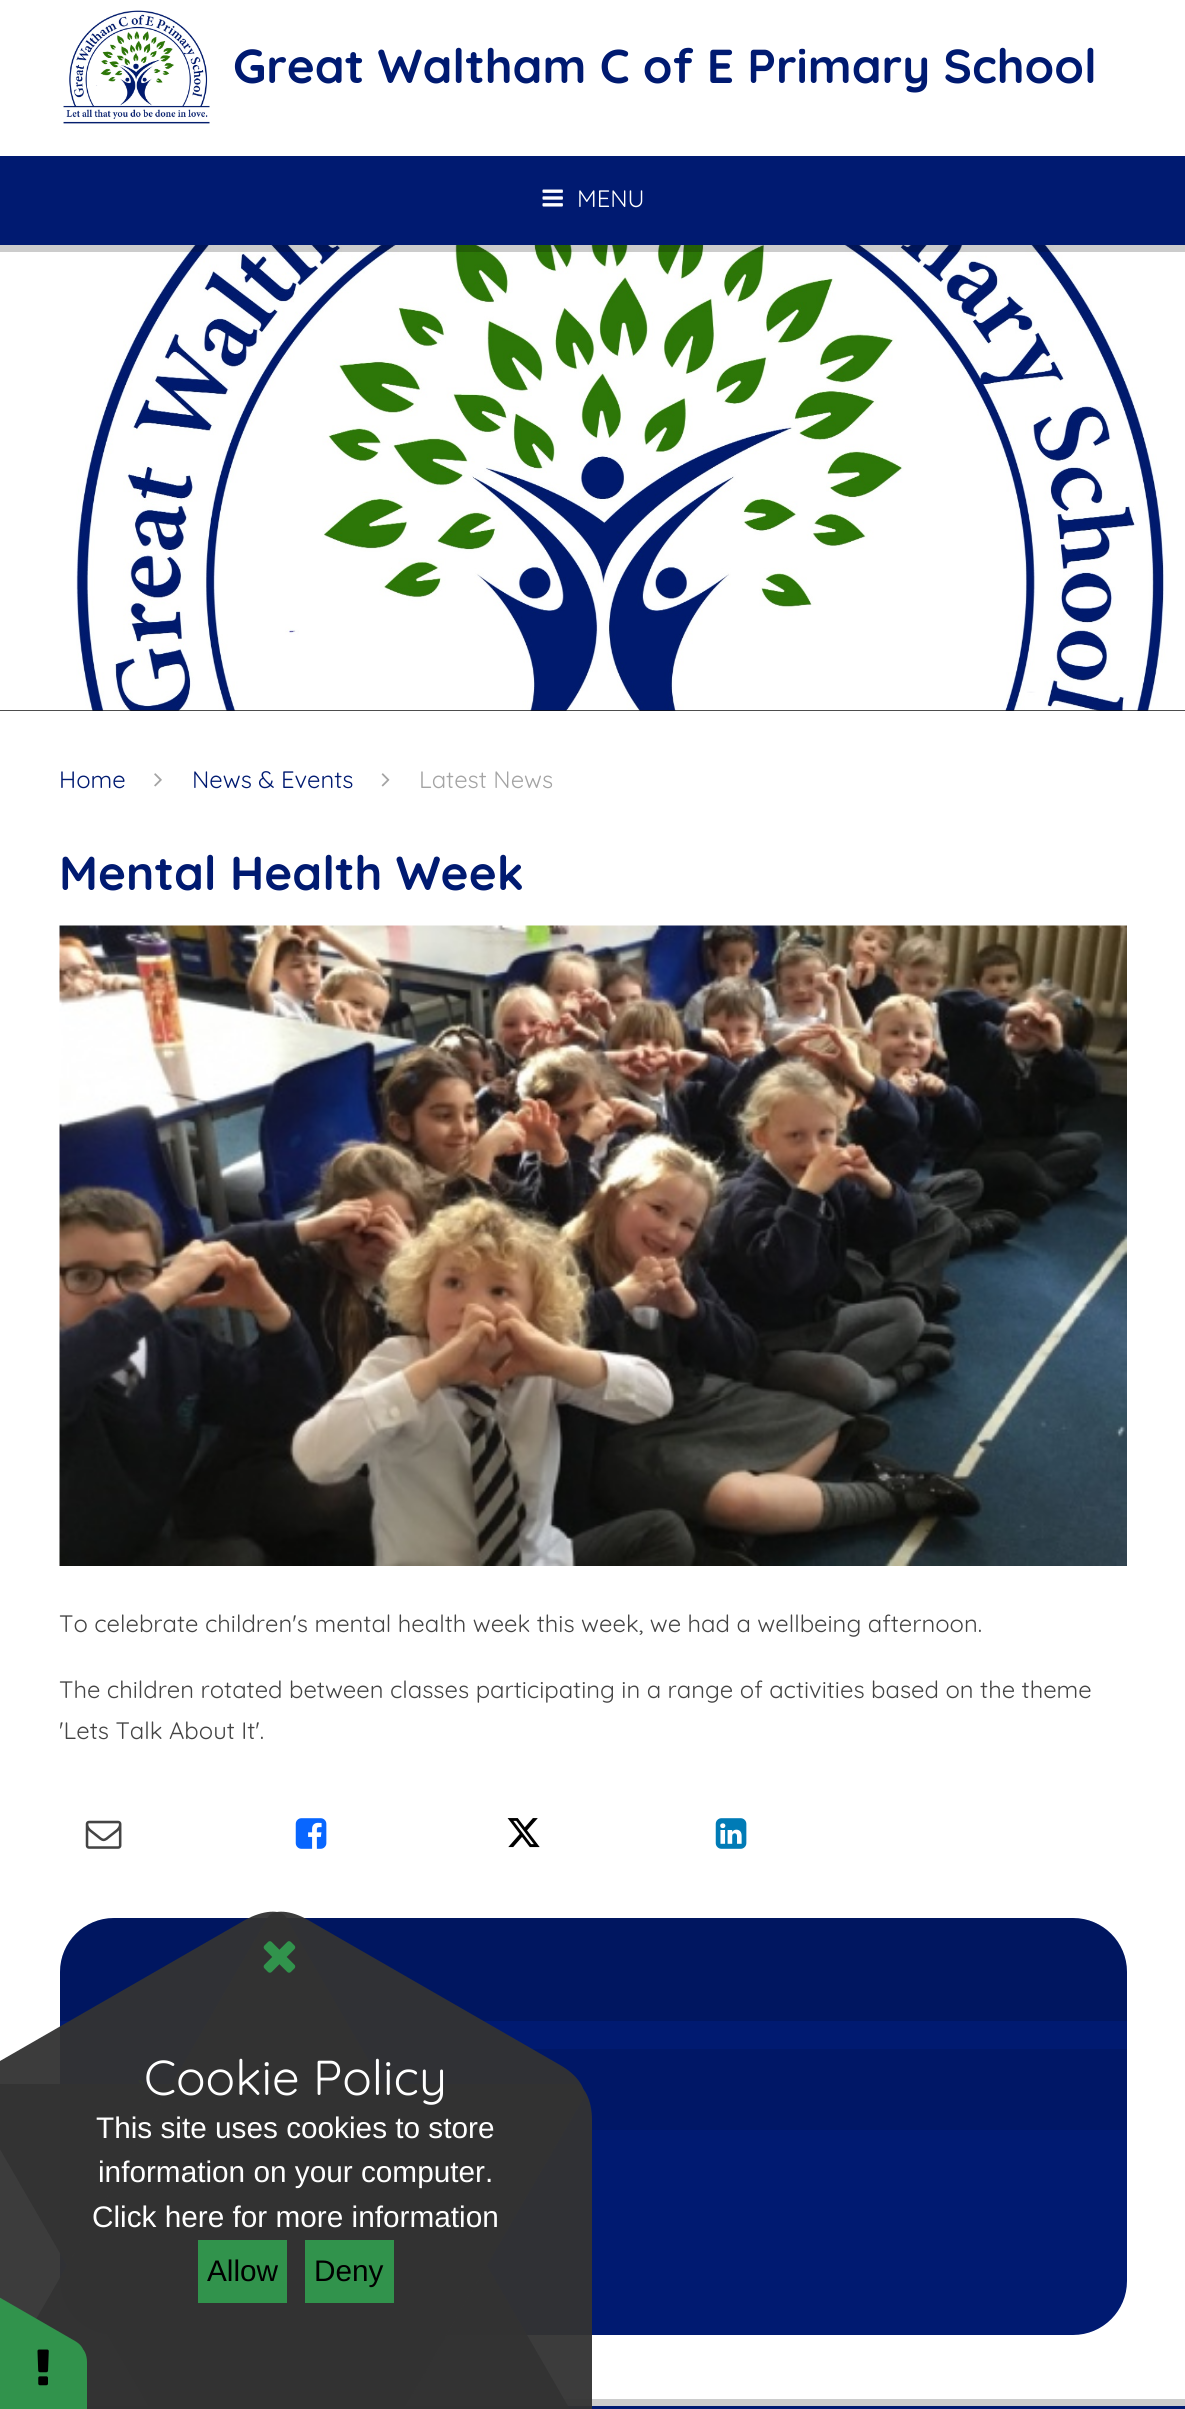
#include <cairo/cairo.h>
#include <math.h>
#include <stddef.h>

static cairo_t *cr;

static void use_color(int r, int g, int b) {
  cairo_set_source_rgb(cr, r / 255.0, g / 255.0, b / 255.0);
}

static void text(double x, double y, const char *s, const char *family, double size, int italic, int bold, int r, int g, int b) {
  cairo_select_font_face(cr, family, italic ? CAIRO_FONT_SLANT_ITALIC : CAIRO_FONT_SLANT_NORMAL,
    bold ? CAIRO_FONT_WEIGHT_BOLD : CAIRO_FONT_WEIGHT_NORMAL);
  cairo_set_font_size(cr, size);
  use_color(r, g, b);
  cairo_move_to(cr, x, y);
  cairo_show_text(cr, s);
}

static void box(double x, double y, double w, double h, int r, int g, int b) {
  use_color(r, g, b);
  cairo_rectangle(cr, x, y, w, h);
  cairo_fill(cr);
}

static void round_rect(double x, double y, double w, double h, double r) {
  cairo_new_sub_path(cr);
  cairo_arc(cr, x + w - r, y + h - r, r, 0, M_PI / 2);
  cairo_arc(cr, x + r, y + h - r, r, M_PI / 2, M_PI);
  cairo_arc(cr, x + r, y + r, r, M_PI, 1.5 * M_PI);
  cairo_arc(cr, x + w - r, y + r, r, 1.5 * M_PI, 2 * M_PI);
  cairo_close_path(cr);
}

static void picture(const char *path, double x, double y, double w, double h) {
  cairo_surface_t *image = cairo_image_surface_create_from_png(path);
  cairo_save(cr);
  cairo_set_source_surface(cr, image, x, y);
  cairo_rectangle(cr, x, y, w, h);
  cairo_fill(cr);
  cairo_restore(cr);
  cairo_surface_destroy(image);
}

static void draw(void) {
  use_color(0, 26, 113);
  cairo_paint(cr);
  box(0, 0, 1185, 156, 255, 255, 255);
  picture("img_01.png", 63, 10, 147, 114);
  box(0, 710, 1185, 1, 17, 17, 17);
  picture("img_03.png", 0, 245, 1185, 466);
  cairo_set_source_rgba(cr, 0, 0, 0, 0.2);
  cairo_rectangle(cr, 0, 245, 1185, 7);
  cairo_fill(cr);
  picture("img_02.png", 542, 189, 21, 18);
  box(0, 711, 1185, 1688, 255, 255, 255);
  picture("img_04.png", 154, 773, 8, 14);
  picture("img_05.png", 381, 773, 9, 14);
  picture("img_06.png", 59, 925, 1068, 641);
  picture("img_07.png", 85, 1820, 37, 29);
  picture("img_08.png", 295, 1818, 32, 31);
  picture("img_09.png", 507, 1818, 33, 30);
  picture("img_10.png", 715, 1818, 32, 31);
  use_color(0, 26, 113);
  round_rect(60, 1918, 1067, 417, 54);
  cairo_fill(cr);
  cairo_set_source_rgba(cr, 0, 0, 0, 0.15);
  cairo_new_path(cr);
  cairo_move_to(cr, 114, 1918);
  cairo_line_to(cr, 1073, 1918);
  cairo_curve_to(cr, 1103, 1918, 1127, 1942, 1127, 1972);
  cairo_line_to(cr, 1127, 2021);
  cairo_line_to(cr, 60, 2021);
  cairo_line_to(cr, 60, 1972);
  cairo_curve_to(cr, 60, 1942, 84, 1918, 114, 1918);
  cairo_close_path(cr);
  cairo_fill(cr);
  box(60, 2049, 1067, 81, 0, 23, 102);
  picture("img_11.png", 138, 2079, 13, 21);
  box(87, 2399, 1098, 7, 204, 204, 204);
  cairo_set_source_rgba(cr, 0.2, 0.2, 0.2, 0.95);
  cairo_new_path(cr);
  cairo_move_to(cr, 592, 2120);
  cairo_line_to(cr, 592, 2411);
  cairo_curve_to(cr, 592, 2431, 584, 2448, 574, 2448);
  cairo_line_to(cr, -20, 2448);
  cairo_curve_to(cr, -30, 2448, -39, 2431, -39, 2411);
  cairo_line_to(cr, -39, 2120);
  cairo_curve_to(cr, -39, 2100, -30, 2084, -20, 2084);
  cairo_line_to(cr, 574, 2084);
  cairo_curve_to(cr, 584, 2084, 592, 2100, 592, 2120);
  cairo_close_path(cr);
  cairo_fill(cr);
  cairo_new_path(cr);
  cairo_move_to(cr, 560, 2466);
  cairo_line_to(cr, 308, 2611);
  cairo_curve_to(cr, 291, 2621, 273, 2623, 268, 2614);
  cairo_line_to(cr, -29, 2099);
  cairo_curve_to(cr, -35, 2091, -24, 2075, -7, 2065);
  cairo_line_to(cr, 245, 1920);
  cairo_curve_to(cr, 263, 1910, 281, 1909, 286, 1917);
  cairo_line_to(cr, 583, 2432);
  cairo_curve_to(cr, 588, 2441, 578, 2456, 560, 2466);
  cairo_close_path(cr);
  cairo_fill(cr);
  cairo_new_path(cr);
  cairo_move_to(cr, 308, 1920);
  cairo_line_to(cr, 560, 2065);
  cairo_curve_to(cr, 578, 2075, 588, 2091, 583, 2099);
  cairo_line_to(cr, 286, 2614);
  cairo_curve_to(cr, 281, 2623, 263, 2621, 245, 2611);
  cairo_line_to(cr, -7, 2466);
  cairo_curve_to(cr, -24, 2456, -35, 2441, -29, 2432);
  cairo_line_to(cr, 268, 1917);
  cairo_curve_to(cr, 273, 1909, 291, 1910, 308, 1920);
  cairo_close_path(cr);
  cairo_fill(cr);
  picture("img_12.png", 263, 1941, 33, 32);
  box(198, 2240, 89, 63, 49, 147, 76);
  box(305, 2240, 89, 63, 49, 147, 76);
  cairo_new_path(cr);
  cairo_move_to(cr, 87, 2362);
  cairo_line_to(cr, 87, 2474);
  cairo_curve_to(cr, 87, 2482, 84, 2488, 80, 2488);
  cairo_line_to(cr, -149, 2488);
  cairo_curve_to(cr, -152, 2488, -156, 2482, -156, 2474);
  cairo_line_to(cr, -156, 2362);
  cairo_curve_to(cr, -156, 2355, -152, 2348, -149, 2348);
  cairo_line_to(cr, 80, 2348);
  cairo_curve_to(cr, 84, 2348, 87, 2355, 87, 2362);
  cairo_close_path(cr);
  cairo_fill(cr);
  cairo_new_path(cr);
  cairo_move_to(cr, -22, 2285);
  cairo_line_to(cr, 75, 2341);
  cairo_curve_to(cr, 82, 2345, 85, 2351, 83, 2354);
  cairo_line_to(cr, -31, 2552);
  cairo_curve_to(cr, -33, 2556, -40, 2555, -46, 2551);
  cairo_line_to(cr, -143, 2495);
  cairo_curve_to(cr, -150, 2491, -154, 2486, -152, 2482);
  cairo_line_to(cr, -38, 2284);
  cairo_curve_to(cr, -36, 2281, -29, 2281, -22, 2285);
  cairo_close_path(cr);
  cairo_fill(cr);
  picture("img_13.png", 37, 2349, 12, 37);
  text(233, 83, "Great Waltham C of E Primary School", "Quicksand", 47.6, 0, 1, 0, 26, 113);
  text(577, 207, "MENU", "Quicksand", 23.8, 0, 0, 255, 255, 255);
  text(59, 788, "Home", "Quicksand", 23.8, 0, 0, 0, 26, 113);
  text(192, 788, "News & Events", "Quicksand", 23.8, 0, 0, 0, 26, 113);
  text(419, 788, "Latest News", "Quicksand", 23.8, 0, 0, 164, 164, 164);
  text(59, 890, "Mental Health Week", "Quicksand", 47.6, 0, 1, 0, 26, 113);
  text(59, 1632, "To celebrate children's mental health week this week, we had a wellbeing afternoon.", "Quicksand", 23.8, 0, 0, 68, 68, 68);
  text(59, 1698, "The children rotated between classes participating in a range of activities based on the theme", "Quicksand", 23.8, 0, 0, 68, 68, 68);
  text(59, 1739, "'Lets Talk About It'.", "Quicksand", 23.8, 0, 0, 68, 68, 68);
  text(144, 2095, "Cookie Policy", "Quicksand", 49, 0, 0, 255, 255, 255);
  text(96, 2138, "This site uses cookies to store", "Liberation Sans", 29.75, 0, 0, 255, 255, 255);
  text(98, 2182, "information on your computer.", "Liberation Sans", 29.75, 0, 0, 255, 255, 255);
  text(92, 2227, "Click here for more information", "Liberation Sans", 29.75, 0, 0, 255, 255, 255);
  text(207, 2281, "Allow", "Liberation Sans", 29.75, 0, 0, 0, 0, 0);
  text(314, 2281, "Deny", "Liberation Sans", 29.75, 0, 0, 0, 0, 0);
}

int main(void) {
  cairo_surface_t *surface = cairo_image_surface_create(CAIRO_FORMAT_RGB24, 1185, 2409);
  cr = cairo_create(surface);
  cairo_font_options_t *options = cairo_font_options_create();
  cairo_font_options_set_hint_metrics(options, CAIRO_HINT_METRICS_OFF);
  cairo_font_options_set_hint_style(options, CAIRO_HINT_STYLE_NONE);
  cairo_set_font_options(cr, options);
  cairo_set_miter_limit(cr, 4);
  draw();
  cairo_surface_write_to_png(surface, "out.png");
  cairo_font_options_destroy(options);
  cairo_destroy(cr);
  cairo_surface_destroy(surface);
  return 0;
}
